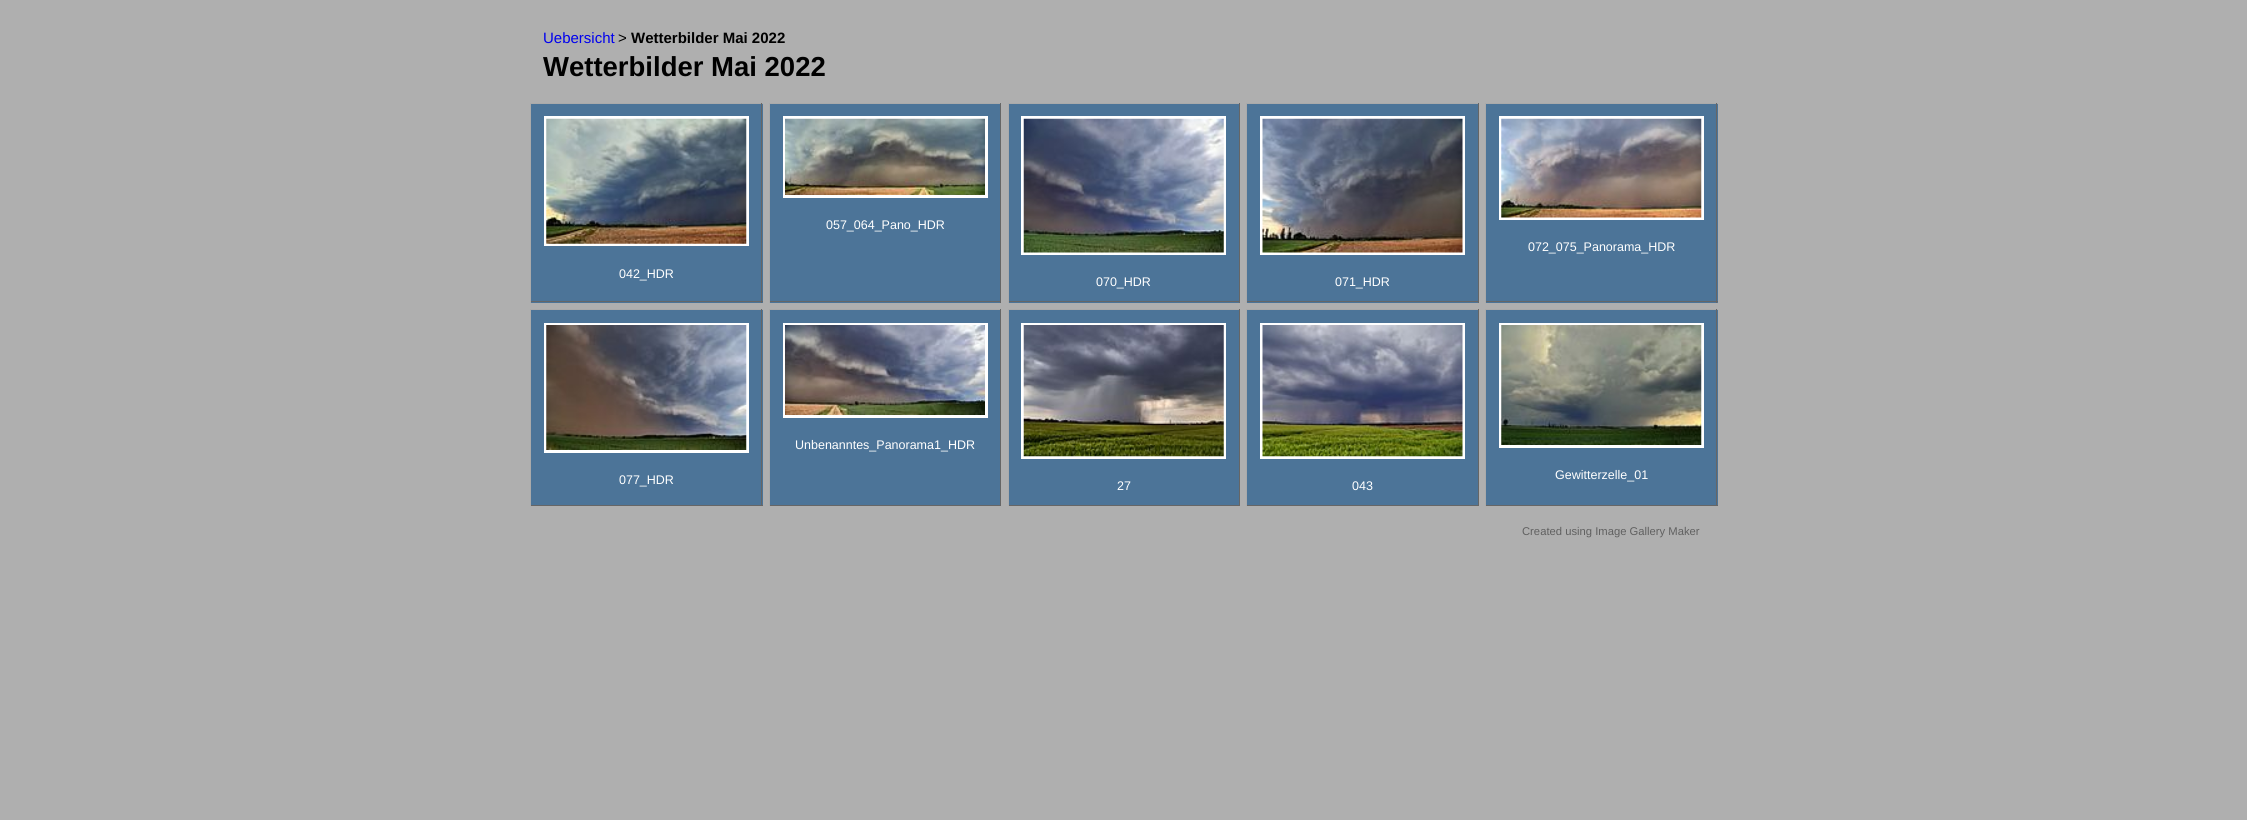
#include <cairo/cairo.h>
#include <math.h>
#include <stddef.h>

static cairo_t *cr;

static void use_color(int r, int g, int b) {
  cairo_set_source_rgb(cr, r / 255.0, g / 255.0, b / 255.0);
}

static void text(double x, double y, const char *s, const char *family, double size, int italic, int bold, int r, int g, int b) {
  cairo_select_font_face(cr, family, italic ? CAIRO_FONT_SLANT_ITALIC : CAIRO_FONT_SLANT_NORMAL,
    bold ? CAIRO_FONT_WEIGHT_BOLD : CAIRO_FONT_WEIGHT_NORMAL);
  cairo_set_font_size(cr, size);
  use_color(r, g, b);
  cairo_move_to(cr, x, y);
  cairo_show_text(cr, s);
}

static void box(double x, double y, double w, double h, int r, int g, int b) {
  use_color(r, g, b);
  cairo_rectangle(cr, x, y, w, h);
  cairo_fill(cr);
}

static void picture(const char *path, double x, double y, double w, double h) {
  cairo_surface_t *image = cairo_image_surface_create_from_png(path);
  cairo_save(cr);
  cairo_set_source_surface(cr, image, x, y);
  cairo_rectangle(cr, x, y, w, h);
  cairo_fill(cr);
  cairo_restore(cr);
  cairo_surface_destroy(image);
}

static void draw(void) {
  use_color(175, 175, 175);
  cairo_paint(cr);
  box(770, 104, 230, 199, 76, 116, 152);
  box(769, 103, 232, 1, 170, 170, 170);
  box(1000, 103, 1, 200, 102, 102, 102);
  box(769, 301, 232, 1, 102, 102, 102);
  box(769, 103, 1, 200, 170, 170, 170);
  cairo_rectangle(cr, 784.5, 117.5, 202, 79);
  use_color(255, 255, 255);
  cairo_set_line_width(cr, 3);
  cairo_stroke(cr);
  picture("img_01.png", 785, 118, 200, 77);
  box(1486, 104, 232, 199, 76, 116, 152);
  box(1485, 103, 233, 1, 170, 170, 170);
  box(1716, 103, 1, 200, 102, 102, 102);
  box(1485, 301, 233, 1, 102, 102, 102);
  box(1485, 103, 1, 200, 170, 170, 170);
  cairo_rectangle(cr, 1500.5, 117.5, 202, 101);
  use_color(255, 255, 255);
  cairo_stroke(cr);
  picture("img_02.png", 1501, 118, 201, 100);
  box(531, 104, 232, 199, 76, 116, 152);
  box(530, 103, 233, 1, 170, 170, 170);
  box(761, 103, 1, 200, 102, 102, 102);
  box(530, 301, 233, 1, 102, 102, 102);
  box(530, 103, 1, 200, 170, 170, 170);
  cairo_rectangle(cr, 545.5, 117.5, 202, 127);
  use_color(255, 255, 255);
  cairo_stroke(cr);
  picture("img_03.png", 546, 118, 201, 126);
  box(1009, 104, 230, 199, 76, 116, 152);
  box(1008, 103, 232, 1, 170, 170, 170);
  box(1239, 103, 1, 200, 102, 102, 102);
  box(1008, 301, 232, 1, 102, 102, 102);
  box(1008, 103, 1, 200, 170, 170, 170);
  cairo_rectangle(cr, 1022.5, 117.5, 202, 136);
  use_color(255, 255, 255);
  cairo_stroke(cr);
  picture("img_04.png", 1023, 118, 201, 135);
  box(1247, 104, 231, 199, 76, 116, 152);
  box(1246, 103, 233, 1, 170, 170, 170);
  box(1478, 103, 1, 200, 102, 102, 102);
  box(1246, 301, 233, 1, 102, 102, 102);
  box(1246, 103, 1, 200, 170, 170, 170);
  cairo_rectangle(cr, 1261.5, 117.5, 202, 136);
  use_color(255, 255, 255);
  cairo_stroke(cr);
  picture("img_05.png", 1262, 118, 201, 135);
  box(770, 310, 230, 195, 76, 116, 152);
  box(769, 309, 232, 1, 170, 170, 170);
  box(1000, 309, 1, 197, 102, 102, 102);
  box(769, 505, 232, 1, 102, 102, 102);
  box(769, 309, 1, 197, 170, 170, 170);
  cairo_rectangle(cr, 784.5, 324.5, 202, 92);
  use_color(255, 255, 255);
  cairo_stroke(cr);
  picture("img_06.png", 785, 325, 200, 90);
  box(531, 310, 232, 195, 76, 116, 152);
  box(530, 309, 233, 1, 170, 170, 170);
  box(761, 309, 1, 197, 102, 102, 102);
  box(530, 505, 233, 1, 102, 102, 102);
  box(530, 309, 1, 197, 170, 170, 170);
  cairo_rectangle(cr, 545.5, 324.5, 202, 127);
  use_color(255, 255, 255);
  cairo_stroke(cr);
  picture("img_07.png", 546, 325, 201, 125);
  box(1009, 310, 230, 195, 76, 116, 152);
  box(1008, 309, 232, 1, 170, 170, 170);
  box(1239, 309, 1, 197, 102, 102, 102);
  box(1008, 505, 232, 1, 102, 102, 102);
  box(1008, 309, 1, 197, 170, 170, 170);
  cairo_rectangle(cr, 1022.5, 324.5, 202, 133);
  use_color(255, 255, 255);
  cairo_stroke(cr);
  picture("img_08.png", 1023, 325, 201, 132);
  box(1247, 310, 231, 195, 76, 116, 152);
  box(1246, 309, 233, 1, 170, 170, 170);
  box(1478, 309, 1, 197, 102, 102, 102);
  box(1246, 505, 233, 1, 102, 102, 102);
  box(1246, 309, 1, 197, 170, 170, 170);
  cairo_rectangle(cr, 1261.5, 324.5, 202, 133);
  use_color(255, 255, 255);
  cairo_stroke(cr);
  picture("img_09.png", 1262, 325, 201, 132);
  box(1486, 310, 232, 195, 76, 116, 152);
  box(1485, 309, 233, 1, 170, 170, 170);
  box(1716, 309, 1, 197, 102, 102, 102);
  box(1485, 505, 233, 1, 102, 102, 102);
  box(1485, 309, 1, 197, 170, 170, 170);
  cairo_rectangle(cr, 1500.5, 324.5, 202, 122);
  use_color(255, 255, 255);
  cairo_stroke(cr);
  picture("img_10.png", 1501, 325, 201, 120);
  text(543, 43, "Uebersicht", "Liberation Sans", 15, 0, 0, 0, 0, 238);
  text(618, 43, ">", "Liberation Sans", 15, 0, 0, 0, 0, 0);
  text(631, 43, "Wetterbilder Mai 2022", "Liberation Sans", 15, 0, 1, 0, 0, 0);
  text(543, 76, "Wetterbilder Mai 2022", "Liberation Sans", 27.5, 0, 1, 0, 0, 0);
  text(826, 229, "057_064_Pano_HDR", "Liberation Sans", 12.5, 0, 0, 255, 255, 255);
  text(1528, 251, "072_075_Panorama_HDR", "Liberation Sans", 12.5, 0, 0, 255, 255, 255);
  text(619, 278, "042_HDR", "Liberation Sans", 12.5, 0, 0, 255, 255, 255);
  text(1096, 286, "070_HDR", "Liberation Sans", 12.5, 0, 0, 255, 255, 255);
  text(1335, 286, "071_HDR", "Liberation Sans", 12.5, 0, 0, 255, 255, 255);
  text(795, 449, "Unbenanntes_Panorama1_HDR", "Liberation Sans", 12.5, 0, 0, 255, 255, 255);
  text(619, 484, "077_HDR", "Liberation Sans", 12.5, 0, 0, 255, 255, 255);
  text(1117, 490, "27", "Liberation Sans", 12.5, 0, 0, 255, 255, 255);
  text(1352, 490, "043", "Liberation Sans", 12.5, 0, 0, 255, 255, 255);
  text(1555, 479, "Gewitterzelle_01", "Liberation Sans", 12.5, 0, 0, 255, 255, 255);
  text(1522, 535, "Created using Image Gallery Maker", "Liberation Sans", 11.25, 0, 0, 96, 96, 96);
}

int main(void) {
  cairo_surface_t *surface = cairo_image_surface_create(CAIRO_FORMAT_RGB24, 2247, 820);
  cr = cairo_create(surface);
  cairo_font_options_t *options = cairo_font_options_create();
  cairo_font_options_set_hint_metrics(options, CAIRO_HINT_METRICS_OFF);
  cairo_font_options_set_hint_style(options, CAIRO_HINT_STYLE_NONE);
  cairo_set_font_options(cr, options);
  cairo_set_miter_limit(cr, 4);
  draw();
  cairo_surface_write_to_png(surface, "out.png");
  cairo_font_options_destroy(options);
  cairo_destroy(cr);
  cairo_surface_destroy(surface);
  return 0;
}
